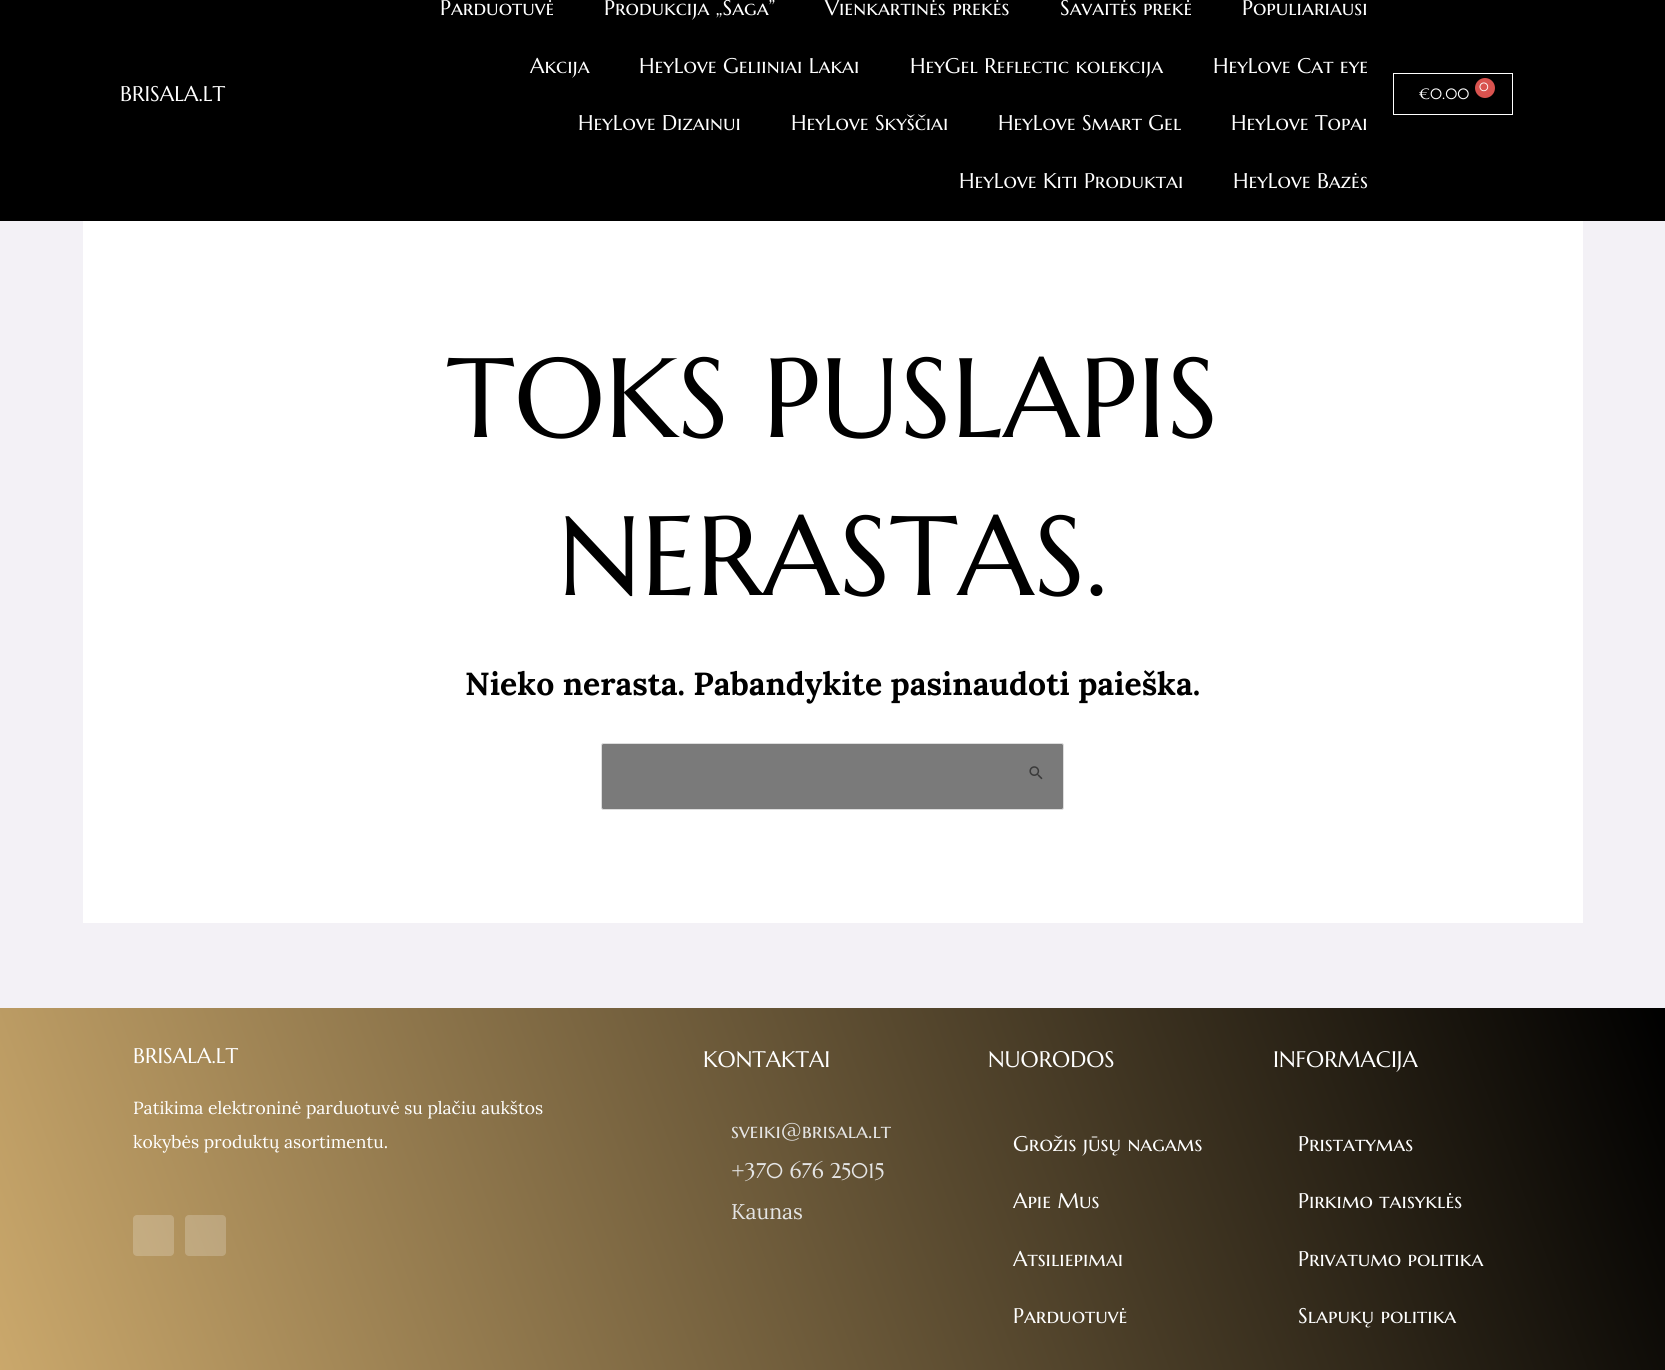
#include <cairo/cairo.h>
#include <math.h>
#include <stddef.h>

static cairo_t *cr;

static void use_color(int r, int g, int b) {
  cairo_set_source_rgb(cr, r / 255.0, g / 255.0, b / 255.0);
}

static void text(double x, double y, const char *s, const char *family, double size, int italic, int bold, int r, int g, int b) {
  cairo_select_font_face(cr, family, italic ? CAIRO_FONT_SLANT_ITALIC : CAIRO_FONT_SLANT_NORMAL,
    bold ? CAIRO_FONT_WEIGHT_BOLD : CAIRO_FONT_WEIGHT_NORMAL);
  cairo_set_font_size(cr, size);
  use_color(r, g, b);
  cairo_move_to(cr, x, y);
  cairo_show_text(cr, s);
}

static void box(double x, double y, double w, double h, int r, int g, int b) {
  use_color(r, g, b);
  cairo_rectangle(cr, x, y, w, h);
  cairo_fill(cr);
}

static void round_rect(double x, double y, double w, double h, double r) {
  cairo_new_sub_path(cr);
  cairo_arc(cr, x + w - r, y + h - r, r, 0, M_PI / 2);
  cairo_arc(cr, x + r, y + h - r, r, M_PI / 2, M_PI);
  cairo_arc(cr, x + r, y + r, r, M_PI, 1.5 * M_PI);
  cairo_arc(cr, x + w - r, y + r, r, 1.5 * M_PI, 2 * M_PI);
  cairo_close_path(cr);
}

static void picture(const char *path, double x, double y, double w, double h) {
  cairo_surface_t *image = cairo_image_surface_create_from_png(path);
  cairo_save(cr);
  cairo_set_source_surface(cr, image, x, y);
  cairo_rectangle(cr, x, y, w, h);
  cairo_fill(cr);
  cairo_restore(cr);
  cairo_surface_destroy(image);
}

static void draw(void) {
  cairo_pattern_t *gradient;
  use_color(243, 241, 246);
  cairo_paint(cr);
  box(0, 0, 1665, 221, 0, 0, 0);
  cairo_rectangle(cr, 1393.5, 73.5, 119, 41);
  use_color(255, 255, 255);
  cairo_set_line_width(cr, 1);
  cairo_stroke(cr);
  use_color(217, 83, 79);
  cairo_arc(cr, 1485, 88, 10, 0, 2 * M_PI);
  cairo_fill(cr);
  box(83, 221, 1500, 702, 255, 255, 255);
  use_color(122, 122, 122);
  round_rect(601.5, 743.5, 462, 66, 2);
  cairo_fill_preserve(cr);
  use_color(221, 221, 221);
  cairo_stroke(cr);
  picture("img_01.png", 1029, 766, 14, 14);
  gradient = cairo_pattern_create_linear(1637, 931, 28, 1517);
  cairo_pattern_add_color_stop_rgba(gradient, 0, 0, 0, 0, 1);
  cairo_pattern_add_color_stop_rgba(gradient, 1, 0.804, 0.667, 0.427, 1);
  cairo_set_source(cr, gradient);
  cairo_pattern_destroy(gradient);
  cairo_rectangle(cr, 0, 1008, 1665, 362);
  cairo_fill(cr);
  cairo_set_source_rgba(cr, 1, 1, 1, 0.21);
  round_rect(133, 1215, 41, 41, 4);
  cairo_fill(cr);
  round_rect(185, 1215, 41, 41, 4);
  cairo_fill(cr);
  text(120, 101, "BRISALA.LT", "Marcellus SC", 21.25, 0, 0, 255, 255, 255);
  text(440, 15, "Parduotuvė", "Marcellus SC", 21.25, 0, 0, 255, 255, 255);
  text(604, 15, "Produkcija „Saga”", "Marcellus SC", 21.25, 0, 0, 255, 255, 255);
  text(825, 15, "Vienkartinės prekės", "Marcellus SC", 21.25, 0, 0, 255, 255, 255);
  text(1060, 15, "Savaitės prekė", "Marcellus SC", 21.25, 0, 0, 255, 255, 255);
  text(1242, 15, "Populiariausi", "Marcellus SC", 21.25, 0, 0, 255, 255, 255);
  text(530, 73, "Akcija", "Marcellus SC", 21.25, 0, 0, 255, 255, 255);
  text(639, 73, "HeyLove Geliiniai Lakai", "Marcellus SC", 21.25, 0, 0, 255, 255, 255);
  text(910, 73, "HeyGel Reflectic kolekcija", "Marcellus SC", 21.25, 0, 0, 255, 255, 255);
  text(1213, 73, "HeyLove Cat eye", "Marcellus SC", 21.25, 0, 0, 255, 255, 255);
  text(578, 130, "HeyLove Dizainui", "Marcellus SC", 21.25, 0, 0, 255, 255, 255);
  text(791, 130, "HeyLove Skyščiai", "Marcellus SC", 21.25, 0, 0, 255, 255, 255);
  text(998, 130, "HeyLove Smart Gel", "Marcellus SC", 21.25, 0, 0, 255, 255, 255);
  text(1231, 130, "HeyLove Topai", "Marcellus SC", 21.25, 0, 0, 255, 255, 255);
  text(959, 188, "HeyLove Kiti Produktai", "Marcellus SC", 21.25, 0, 0, 255, 255, 255);
  text(1233, 188, "HeyLove Bazės", "Marcellus SC", 21.25, 0, 0, 255, 255, 255);
  text(1479, 91, "0", "Marcellus SC", 12, 0, 0, 255, 255, 255);
  text(1419, 99, "€0.00", "Marcellus SC", 15, 0, 0, 255, 255, 255);
  text(447, 437, "TOKS PUSLAPIS", "Marcellus SC", 112.5, 0, 0, 0, 0, 0);
  text(558, 595, "NERASTAS.", "Marcellus SC", 112.5, 0, 0, 0, 0, 0);
  text(465, 695, "Nieko nerasta. Pabandykite pasinaudoti paieška.", "Lora", 31.9, 0, 1, 0, 0, 0);
  text(133, 1063, "BRISALA.LT", "Marcellus SC", 21.25, 0, 0, 255, 255, 255);
  text(133, 1114, "Patikima elektroninė parduotuvė su plačiu aukštos", "Lora", 17.5, 0, 0, 255, 255, 255);
  text(133, 1148, "kokybės produktų asortimentu.", "Lora", 17.5, 0, 0, 255, 255, 255);
  text(703, 1067, "KONTAKTAI", "Marcellus SC", 22.5, 0, 0, 255, 255, 255);
  text(731, 1138, "sveiki@brisala.lt", "Marcellus SC", 21.25, 0, 0, 228, 228, 228);
  text(731, 1178, "+370 676 25015", "Marcellus SC", 21.25, 0, 0, 228, 228, 228);
  text(731, 1219, "Kaunas", "Lora", 21.25, 0, 0, 228, 228, 228);
  text(988, 1067, "NUORODOS", "Marcellus SC", 22.5, 0, 0, 255, 255, 255);
  text(1013, 1151, "Grožis jūsų nagams", "Marcellus SC", 21.25, 0, 0, 255, 255, 255);
  text(1013, 1208, "Apie Mus", "Marcellus SC", 21.25, 0, 0, 255, 255, 255);
  text(1013, 1266, "Atsiliepimai", "Marcellus SC", 21.25, 0, 0, 255, 255, 255);
  text(1013, 1323, "Parduotuvė", "Marcellus SC", 21.25, 0, 0, 255, 255, 255);
  text(1273, 1067, "INFORMACIJA", "Marcellus SC", 22.5, 0, 0, 255, 255, 255);
  text(1298, 1151, "Pristatymas", "Marcellus SC", 21.25, 0, 0, 255, 255, 255);
  text(1298, 1208, "Pirkimo taisyklės", "Marcellus SC", 21.25, 0, 0, 255, 255, 255);
  text(1298, 1266, "Privatumo politika", "Marcellus SC", 21.25, 0, 0, 255, 255, 255);
  text(1298, 1323, "Slapukų politika", "Marcellus SC", 21.25, 0, 0, 255, 255, 255);
}

int main(void) {
  cairo_surface_t *surface = cairo_image_surface_create(CAIRO_FORMAT_RGB24, 1665, 1370);
  cr = cairo_create(surface);
  cairo_font_options_t *options = cairo_font_options_create();
  cairo_font_options_set_hint_metrics(options, CAIRO_HINT_METRICS_OFF);
  cairo_font_options_set_hint_style(options, CAIRO_HINT_STYLE_NONE);
  cairo_set_font_options(cr, options);
  cairo_set_miter_limit(cr, 4);
  draw();
  cairo_surface_write_to_png(surface, "out.png");
  cairo_font_options_destroy(options);
  cairo_destroy(cr);
  cairo_surface_destroy(surface);
  return 0;
}
